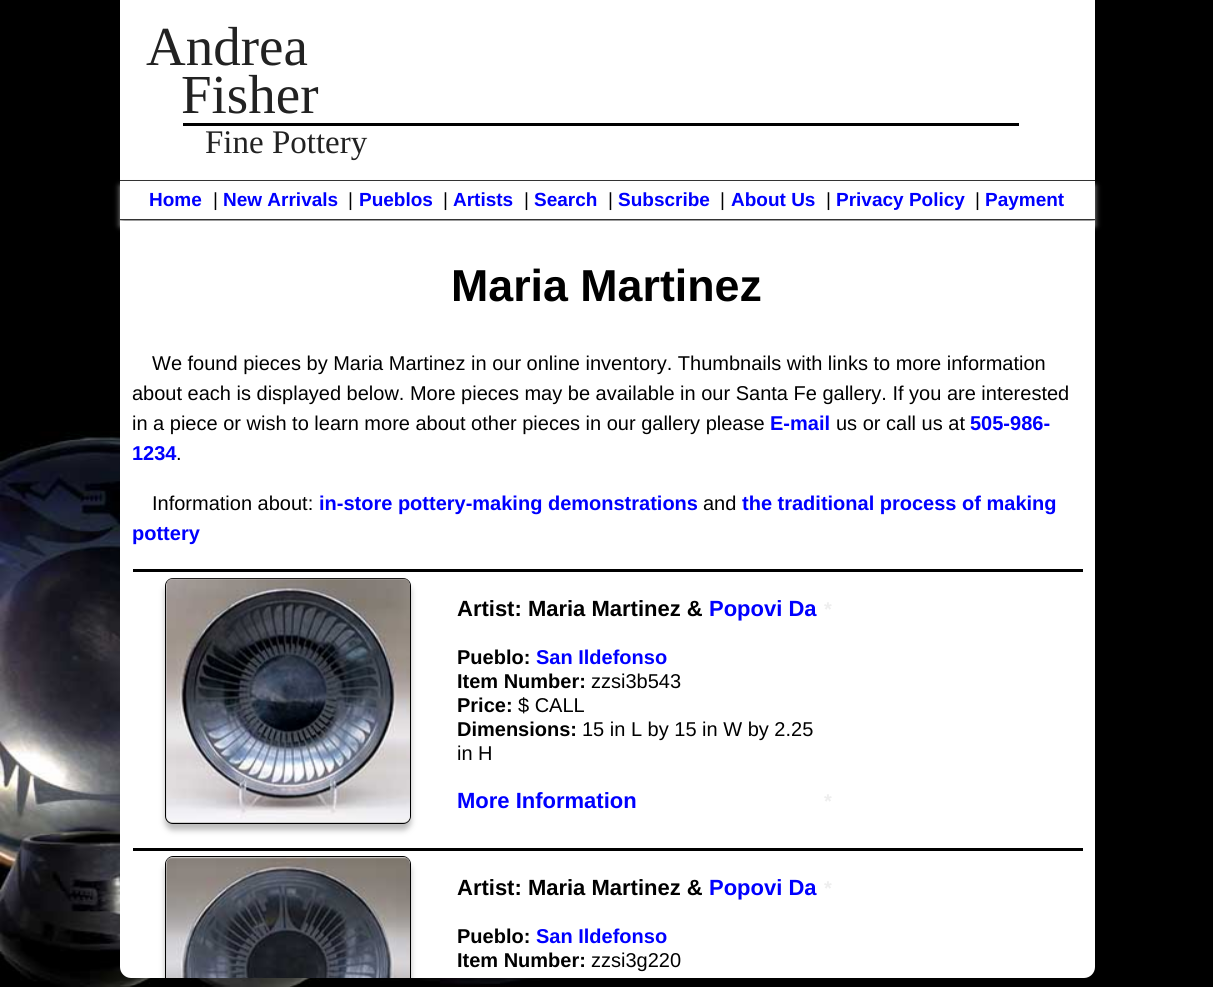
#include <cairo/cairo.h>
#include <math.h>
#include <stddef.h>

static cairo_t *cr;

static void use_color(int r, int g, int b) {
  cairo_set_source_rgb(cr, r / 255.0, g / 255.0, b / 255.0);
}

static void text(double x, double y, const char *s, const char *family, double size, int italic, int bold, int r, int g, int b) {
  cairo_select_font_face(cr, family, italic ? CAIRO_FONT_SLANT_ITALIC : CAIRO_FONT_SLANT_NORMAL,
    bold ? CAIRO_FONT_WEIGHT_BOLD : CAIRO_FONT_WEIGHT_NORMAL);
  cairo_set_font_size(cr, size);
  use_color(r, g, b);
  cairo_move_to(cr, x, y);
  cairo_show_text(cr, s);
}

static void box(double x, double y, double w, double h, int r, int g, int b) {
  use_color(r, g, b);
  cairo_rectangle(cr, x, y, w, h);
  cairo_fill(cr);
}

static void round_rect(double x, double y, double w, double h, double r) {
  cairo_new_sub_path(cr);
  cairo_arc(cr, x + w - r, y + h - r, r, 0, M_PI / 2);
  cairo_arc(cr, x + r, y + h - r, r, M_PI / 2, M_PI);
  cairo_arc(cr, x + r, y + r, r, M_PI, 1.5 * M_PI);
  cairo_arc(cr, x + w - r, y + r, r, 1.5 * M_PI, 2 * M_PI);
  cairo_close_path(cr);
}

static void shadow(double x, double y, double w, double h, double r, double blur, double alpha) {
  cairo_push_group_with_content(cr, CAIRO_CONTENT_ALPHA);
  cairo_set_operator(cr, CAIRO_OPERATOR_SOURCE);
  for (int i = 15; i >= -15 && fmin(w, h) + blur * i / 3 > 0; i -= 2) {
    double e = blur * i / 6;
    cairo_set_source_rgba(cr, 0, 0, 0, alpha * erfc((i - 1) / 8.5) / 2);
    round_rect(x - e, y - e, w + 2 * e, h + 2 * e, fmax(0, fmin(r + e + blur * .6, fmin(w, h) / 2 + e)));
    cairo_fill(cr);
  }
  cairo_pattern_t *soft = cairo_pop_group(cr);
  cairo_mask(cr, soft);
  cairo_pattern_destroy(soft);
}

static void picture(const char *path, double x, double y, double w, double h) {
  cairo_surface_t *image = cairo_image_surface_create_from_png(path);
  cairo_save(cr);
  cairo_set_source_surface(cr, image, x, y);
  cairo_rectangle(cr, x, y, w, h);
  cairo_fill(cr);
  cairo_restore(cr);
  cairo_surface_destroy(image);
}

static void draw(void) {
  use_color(0, 0, 0);
  cairo_paint(cr);
  picture("img_01.png", 0, 431, 620, 556);
  box(120, 0, 975, 221, 255, 255, 255);
  box(183, 123, 836, 3, 0, 0, 0);
  cairo_save(cr);
  cairo_set_fill_rule(cr, CAIRO_FILL_RULE_EVEN_ODD);
  cairo_new_path(cr);
  cairo_move_to(cr, 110, 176);
  cairo_line_to(cr, 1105, 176);
  cairo_line_to(cr, 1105, 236);
  cairo_line_to(cr, 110, 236);
  cairo_close_path(cr);
  cairo_move_to(cr, 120, 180);
  cairo_line_to(cr, 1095, 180);
  cairo_line_to(cr, 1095, 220);
  cairo_line_to(cr, 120, 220);
  cairo_close_path(cr);
  cairo_clip(cr);
  use_color(153, 153, 153);
  shadow(120, 186, 975, 40, 0, 3, 1);
  cairo_restore(cr);
  box(120, 180, 975, 1, 51, 51, 51);
  box(120, 219, 975, 1, 51, 51, 51);
  use_color(255, 255, 255);
  cairo_new_path(cr);
  cairo_move_to(cr, 120, 221);
  cairo_line_to(cr, 1095, 221);
  cairo_line_to(cr, 1095, 967);
  cairo_curve_to(cr, 1095, 973, 1090, 978, 1084, 978);
  cairo_line_to(cr, 131, 978);
  cairo_curve_to(cr, 125, 978, 120, 973, 120, 967);
  cairo_close_path(cr);
  cairo_fill(cr);
  box(133, 569, 950, 3, 0, 0, 0);
  use_color(187, 187, 187);
  shadow(165, 584, 246, 246, 8, 3, 1);
  round_rect(165.5, 578.5, 245, 245, 7.5);
  use_color(0, 0, 0);
  cairo_set_line_width(cr, 1);
  cairo_stroke(cr);
  picture("img_02.png", 166, 578, 244, 245);
  box(133, 848, 950, 3, 0, 0, 0);
  cairo_save(cr);
  cairo_new_path(cr);
  cairo_move_to(cr, 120, 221);
  cairo_line_to(cr, 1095, 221);
  cairo_line_to(cr, 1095, 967);
  cairo_curve_to(cr, 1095, 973, 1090, 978, 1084, 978);
  cairo_line_to(cr, 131, 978);
  cairo_curve_to(cr, 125, 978, 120, 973, 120, 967);
  cairo_close_path(cr);
  cairo_clip(cr);
  use_color(187, 187, 187);
  shadow(165, 863, 246, 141, 8, 3, 1);
  cairo_restore(cr);
  cairo_new_path(cr);
  cairo_move_to(cr, 173, 856);
  cairo_curve_to(cr, 169, 856, 165, 860, 165, 864);
  cairo_line_to(cr, 165, 978);
  cairo_line_to(cr, 166, 978);
  cairo_line_to(cr, 166, 864);
  cairo_curve_to(cr, 166, 860, 169, 857, 173, 857);
  cairo_line_to(cr, 403, 857);
  cairo_curve_to(cr, 407, 857, 410, 860, 410, 864);
  cairo_line_to(cr, 410, 978);
  cairo_line_to(cr, 411, 978);
  cairo_line_to(cr, 411, 864);
  cairo_curve_to(cr, 411, 860, 407, 856, 403, 856);
  cairo_close_path(cr);
  cairo_fill(cr);
  picture("img_03.png", 166, 857, 244, 121);
  text(146, 65, "Andrea", "Liberation Serif", 55, 0, 0, 34, 34, 34);
  text(181, 113, "Fisher", "Liberation Serif", 55, 0, 0, 34, 34, 34);
  text(205, 153, "Fine Pottery", "Liberation Serif", 33, 0, 0, 34, 34, 34);
  text(149, 206, "Home", "Liberation Sans", 19, 0, 1, 0, 0, 255);
  text(213, 206, "|", "Liberation Sans", 19, 0, 0, 0, 0, 0);
  text(223, 206, "New Arrivals", "Liberation Sans", 19, 0, 1, 0, 0, 255);
  text(348, 206, "|", "Liberation Sans", 19, 0, 0, 0, 0, 0);
  text(359, 206, "Pueblos", "Liberation Sans", 19, 0, 1, 0, 0, 255);
  text(443, 206, "|", "Liberation Sans", 19, 0, 0, 0, 0, 0);
  text(453, 206, "Artists", "Liberation Sans", 19, 0, 1, 0, 0, 255);
  text(524, 206, "|", "Liberation Sans", 19, 0, 0, 0, 0, 0);
  text(534, 206, "Search", "Liberation Sans", 19, 0, 1, 0, 0, 255);
  text(608, 206, "|", "Liberation Sans", 19, 0, 0, 0, 0, 0);
  text(618, 206, "Subscribe", "Liberation Sans", 19, 0, 1, 0, 0, 255);
  text(720, 206, "|", "Liberation Sans", 19, 0, 0, 0, 0, 0);
  text(731, 206, "About Us", "Liberation Sans", 19, 0, 1, 0, 0, 255);
  text(826, 206, "|", "Liberation Sans", 19, 0, 0, 0, 0, 0);
  text(836, 206, "Privacy Policy", "Liberation Sans", 19, 0, 1, 0, 0, 255);
  text(975, 206, "|", "Liberation Sans", 19, 0, 0, 0, 0, 0);
  text(985, 206, "Payment", "Liberation Sans", 19, 0, 1, 0, 0, 255);
  text(451, 301, "Maria Martinez", "Liberation Sans", 44.75, 0, 1, 0, 0, 0);
  text(152, 370, "We found pieces by Maria Martinez in our online inventory. Thumbnails with links to more information", "Liberation Sans", 20, 0, 0, 0, 0, 0);
  text(132, 400, "about each is displayed below. More pieces may be available in our Santa Fe gallery. If you are interested", "Liberation Sans", 20, 0, 0, 0, 0, 0);
  text(132, 430, "in a piece or wish to learn more about other pieces in our gallery please", "Liberation Sans", 20, 0, 0, 0, 0, 0);
  text(770, 430, "E-mail", "Liberation Sans", 20, 0, 1, 0, 0, 255);
  text(836, 430, "us or call us at", "Liberation Sans", 20, 0, 0, 0, 0, 0);
  text(970, 430, "505-986-", "Liberation Sans", 20, 0, 1, 0, 0, 255);
  text(132, 460, "1234", "Liberation Sans", 20, 0, 1, 0, 0, 255);
  text(176, 460, ".", "Liberation Sans", 20, 0, 0, 0, 0, 0);
  text(152, 510, "Information about:", "Liberation Sans", 20, 0, 0, 0, 0, 0);
  text(319, 510, "in-store pottery-making demonstrations", "Liberation Sans", 20, 0, 1, 0, 0, 255);
  text(703, 510, "and", "Liberation Sans", 20, 0, 0, 0, 0, 0);
  text(742, 510, "the traditional process of making", "Liberation Sans", 20, 0, 1, 0, 0, 255);
  text(132, 540, "pottery", "Liberation Sans", 20, 0, 1, 0, 0, 255);
  text(457, 616, "Artist: Maria Martinez &", "Liberation Sans", 22, 0, 1, 0, 0, 0);
  text(709, 616, "Popovi Da", "Liberation Sans", 22, 0, 1, 0, 0, 255);
  text(824, 616, "*", "Liberation Sans", 20, 0, 1, 238, 238, 238);
  text(457, 664, "Pueblo:", "Liberation Sans", 20, 0, 1, 0, 0, 0);
  text(536, 664, "San Ildefonso", "Liberation Sans", 20, 0, 1, 0, 0, 255);
  text(457, 688, "Item Number:", "Liberation Sans", 20, 0, 1, 0, 0, 0);
  text(591, 688, "zzsi3b543", "Liberation Sans", 20, 0, 0, 0, 0, 0);
  text(457, 712, "Price:", "Liberation Sans", 20, 0, 1, 0, 0, 0);
  text(518, 712, "$ CALL", "Liberation Sans", 20, 0, 0, 0, 0, 0);
  text(457, 736, "Dimensions:", "Liberation Sans", 20, 0, 1, 0, 0, 0);
  text(582, 736, "15 in L by 15 in W by 2.25", "Liberation Sans", 20, 0, 0, 0, 0, 0);
  text(457, 760, "in H", "Liberation Sans", 20, 0, 0, 0, 0, 0);
  text(457, 808, "More Information", "Liberation Sans", 22, 0, 1, 0, 0, 255);
  text(824, 808, "*", "Liberation Sans", 20, 0, 1, 238, 238, 238);
  text(457, 895, "Artist: Maria Martinez &", "Liberation Sans", 22, 0, 1, 0, 0, 0);
  text(709, 895, "Popovi Da", "Liberation Sans", 22, 0, 1, 0, 0, 255);
  text(824, 895, "*", "Liberation Sans", 20, 0, 1, 238, 238, 238);
  text(457, 943, "Pueblo:", "Liberation Sans", 20, 0, 1, 0, 0, 0);
  text(536, 943, "San Ildefonso", "Liberation Sans", 20, 0, 1, 0, 0, 255);
  text(457, 967, "Item Number:", "Liberation Sans", 20, 0, 1, 0, 0, 0);
  text(591, 967, "zzsi3g220", "Liberation Sans", 20, 0, 0, 0, 0, 0);
}

int main(void) {
  cairo_surface_t *surface = cairo_image_surface_create(CAIRO_FORMAT_RGB24, 1213, 987);
  cr = cairo_create(surface);
  cairo_font_options_t *options = cairo_font_options_create();
  cairo_font_options_set_hint_metrics(options, CAIRO_HINT_METRICS_OFF);
  cairo_font_options_set_hint_style(options, CAIRO_HINT_STYLE_NONE);
  cairo_set_font_options(cr, options);
  cairo_set_miter_limit(cr, 4);
  draw();
  cairo_surface_write_to_png(surface, "out.png");
  cairo_font_options_destroy(options);
  cairo_destroy(cr);
  cairo_surface_destroy(surface);
  return 0;
}
